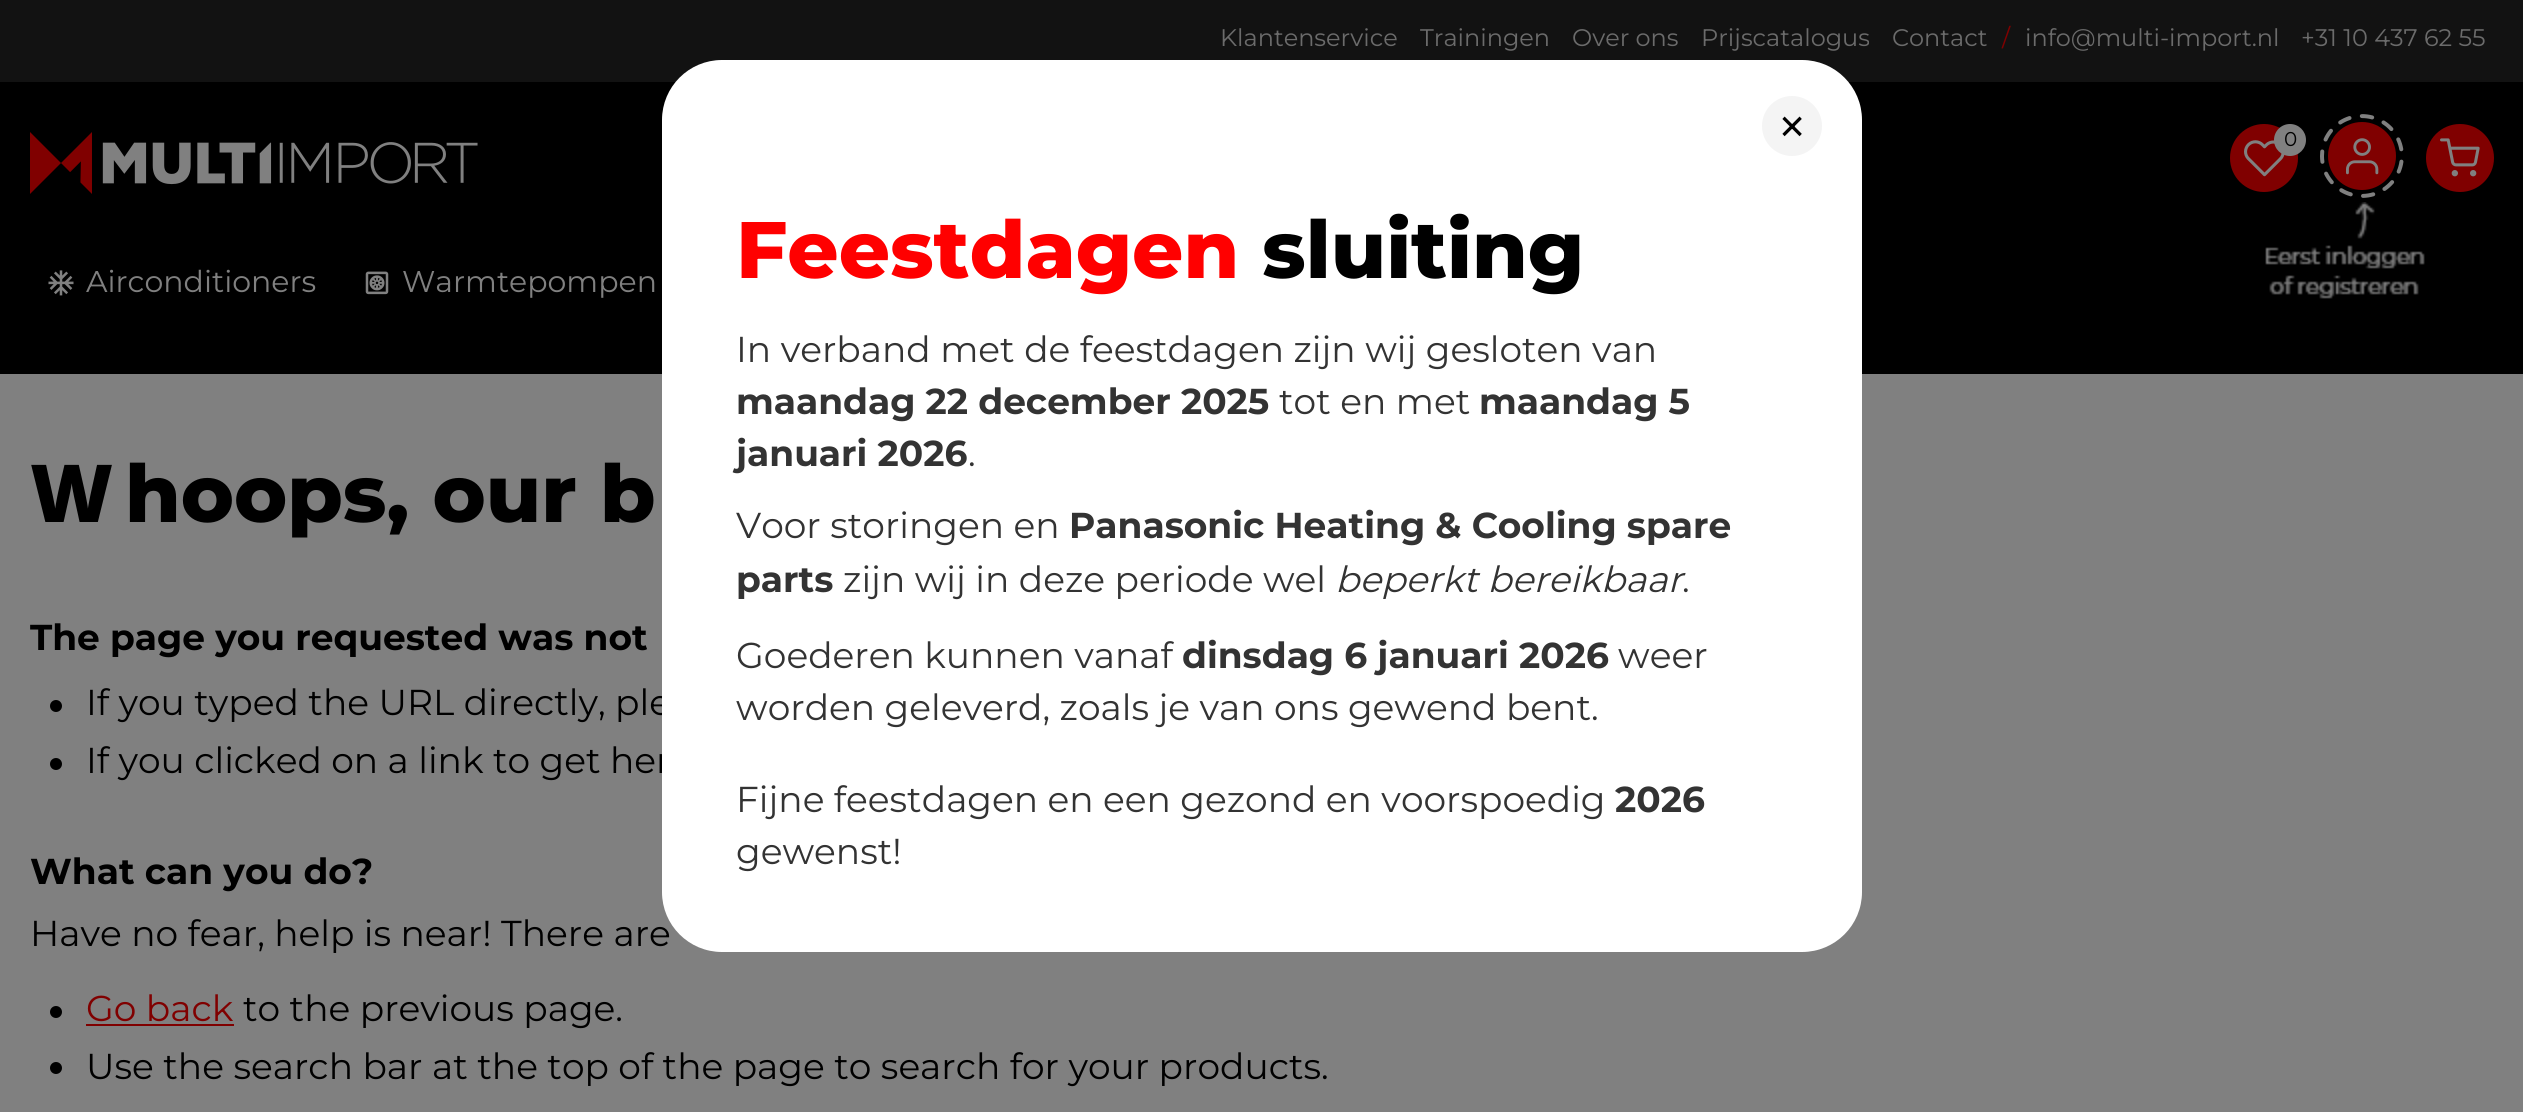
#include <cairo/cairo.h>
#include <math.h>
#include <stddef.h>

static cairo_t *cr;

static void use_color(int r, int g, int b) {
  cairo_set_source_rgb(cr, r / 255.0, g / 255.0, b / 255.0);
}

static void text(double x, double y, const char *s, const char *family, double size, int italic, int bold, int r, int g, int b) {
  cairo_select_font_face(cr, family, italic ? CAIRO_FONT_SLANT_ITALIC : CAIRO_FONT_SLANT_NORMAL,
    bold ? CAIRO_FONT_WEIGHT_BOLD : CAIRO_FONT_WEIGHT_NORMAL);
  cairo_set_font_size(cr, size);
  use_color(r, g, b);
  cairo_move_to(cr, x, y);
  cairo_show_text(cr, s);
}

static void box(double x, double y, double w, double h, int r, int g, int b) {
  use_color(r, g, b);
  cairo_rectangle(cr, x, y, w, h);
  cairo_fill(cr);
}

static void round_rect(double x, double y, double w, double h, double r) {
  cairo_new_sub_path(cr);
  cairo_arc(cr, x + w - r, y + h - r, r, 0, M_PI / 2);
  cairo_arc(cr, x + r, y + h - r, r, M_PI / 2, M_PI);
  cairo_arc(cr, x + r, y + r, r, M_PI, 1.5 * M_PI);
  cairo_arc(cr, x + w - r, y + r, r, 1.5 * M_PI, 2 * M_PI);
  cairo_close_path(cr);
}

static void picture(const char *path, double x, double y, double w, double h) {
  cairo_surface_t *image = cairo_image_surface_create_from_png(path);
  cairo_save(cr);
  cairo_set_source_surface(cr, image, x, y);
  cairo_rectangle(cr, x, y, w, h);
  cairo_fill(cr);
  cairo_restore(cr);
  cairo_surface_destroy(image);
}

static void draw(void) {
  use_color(128, 128, 128);
  cairo_paint(cr);
  box(0, 82, 2523, 292, 0, 0, 0);
  box(0, 0, 2523, 82, 18, 18, 18);
  picture("img_01.png", 30, 132, 448, 62);
  use_color(128, 0, 0);
  cairo_arc(cr, 2362, 156, 34, 0, 2 * M_PI);
  cairo_fill(cr);
  picture("img_03.png", 2346, 138, 33, 37);
  picture("img_02.png", 2320, 114, 84, 84);
  picture("img_04.png", 2265, 202, 160, 97);
  cairo_arc(cr, 2460, 158, 34, 0, 2 * M_PI);
  cairo_fill(cr);
  picture("img_05.png", 2440, 138, 40, 39);
  cairo_arc(cr, 2264, 158, 34, 0, 2 * M_PI);
  cairo_fill(cr);
  picture("img_06.png", 2244, 140, 41, 37);
  use_color(128, 128, 128);
  cairo_arc(cr, 2290, 140, 16, 0, 2 * M_PI);
  cairo_fill(cr);
  picture("img_07.png", 48, 270, 26, 26);
  picture("img_08.png", 365, 271, 24, 24);
  use_color(0, 0, 0);
  cairo_arc(cr, 56, 706, 6, 0, 2 * M_PI);
  cairo_fill(cr);
  cairo_arc(cr, 56, 764, 6, 0, 2 * M_PI);
  cairo_fill(cr);
  cairo_arc(cr, 56, 1012, 6, 0, 2 * M_PI);
  cairo_fill(cr);
  box(86, 1024, 148, 2, 128, 0, 0);
  use_color(0, 0, 0);
  cairo_arc(cr, 56, 1068, 6, 0, 2 * M_PI);
  cairo_fill(cr);
  text(1220, 46, "Klantenservice", "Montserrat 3 Thin", 24, 0, 0, 107, 107, 107);
  text(1420, 46, "Trainingen", "Montserrat 3 Thin", 24, 0, 0, 107, 107, 107);
  text(1572, 46, "Over ons", "Montserrat 3 Thin", 24, 0, 0, 107, 107, 107);
  text(1701, 46, "Prijscatalogus", "Montserrat 3 Thin", 24, 0, 0, 107, 107, 107);
  text(1892, 46, "Contact", "Montserrat 3 Thin", 24, 0, 0, 107, 107, 107);
  text(2002, 46, "/", "Montserrat 3 Thin", 24, 0, 0, 128, 0, 0);
  text(2025, 46, "info@multi-import.nl", "Montserrat 3 Thin", 24, 0, 0, 107, 107, 107);
  text(2301, 46, "+31 10 437 62 55", "Montserrat 3 Thin", 24, 0, 0, 107, 107, 107);
  text(2284, 146, "0", "Montserrat 3 Thin", 20, 0, 0, 0, 0, 0);
  text(86, 292, "Airconditioners", "Montserrat 3 Thin", 30, 0, 0, 128, 128, 128);
  text(402, 292, "Warmtepompen", "Montserrat 3 Thin", 30, 0, 0, 128, 128, 128);
  text(30, 522, "W", "Noto Sans Black", 80, 0, 0, 0, 0, 0);
  text(125, 522, "hoops, our b", "Montserrat Thin", 80, 0, 0, 0, 0, 0);
  text(30, 650, "The page you requested was not", "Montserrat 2 Thin", 36, 0, 0, 0, 0, 0);
  text(86, 715, "If you typed the URL directly, ple", "Montserrat 3 Thin", 36, 0, 0, 0, 0, 0);
  text(86, 773, "If you clicked on a link to get her", "Montserrat 3 Thin", 36, 0, 0, 0, 0, 0);
  text(30, 884, "What can you do?", "Montserrat 2 Thin", 36, 0, 0, 0, 0, 0);
  text(30, 946, "Have no fear, help is near! There are", "Montserrat 3 Thin", 36, 0, 0, 0, 0, 0);
  text(86, 1021, "Go back", "Montserrat 3 Thin", 36, 0, 0, 128, 0, 0);
  text(243, 1021, "to the previous page.", "Montserrat 3 Thin", 36, 0, 0, 0, 0, 0);
  text(86, 1079, "Use the search bar at the top of the page to search for your products.", "Montserrat 3 Thin", 36, 0, 0, 0, 0, 0);
  use_color(255, 255, 255);
  round_rect(662, 60, 1200, 892, 60);
  cairo_fill(cr);
  use_color(244, 244, 244);
  cairo_arc(cr, 1792, 126, 30, 0, 2 * M_PI);
  cairo_fill(cr);
  text(1776, 146, "×", "Montserrat 3 Thin", 56, 0, 0, 0, 0, 0);
  text(736, 278, "Feestdagen", "Montserrat Thin", 80, 0, 0, 255, 0, 0);
  text(1262, 278, "sluiting", "Montserrat Thin", 80, 0, 0, 0, 0, 0);
  text(736, 362, "In verband met de feestdagen zijn wij gesloten van", "Montserrat 3 Thin", 36, 0, 0, 51, 51, 51);
  text(736, 414, "maandag 22 december 2025", "Montserrat 2 Thin", 36, 0, 0, 51, 51, 51);
  text(1279, 414, "tot en met", "Montserrat 3 Thin", 36, 0, 0, 51, 51, 51);
  text(1479, 414, "maandag 5", "Montserrat 2 Thin", 36, 0, 0, 51, 51, 51);
  text(736, 466, "januari 2026", "Montserrat 2 Thin", 36, 0, 0, 51, 51, 51);
  text(968, 466, ".", "Montserrat 3 Thin", 36, 0, 0, 51, 51, 51);
  text(736, 538, "Voor storingen en", "Montserrat 3 Thin", 36, 0, 0, 51, 51, 51);
  text(1069, 538, "Panasonic Heating & Cooling spare", "Montserrat 2 Thin", 36, 0, 0, 51, 51, 51);
  text(736, 592, "parts", "Montserrat 2 Thin", 36, 0, 0, 51, 51, 51);
  text(843, 592, "zijn wij in deze periode wel", "Montserrat 3 Thin", 36, 0, 0, 51, 51, 51);
  text(1335, 592, "beperkt bereikbaar", "Montserrat Thin", 36, 1, 0, 51, 51, 51);
  text(1682, 592, ".", "Montserrat 3 Thin", 36, 0, 0, 51, 51, 51);
  text(736, 668, "Goederen kunnen vanaf", "Montserrat 3 Thin", 36, 0, 0, 51, 51, 51);
  text(1182, 668, "dinsdag 6 januari 2026", "Montserrat 2 Thin", 36, 0, 0, 51, 51, 51);
  text(1618, 668, "weer", "Montserrat 3 Thin", 36, 0, 0, 51, 51, 51);
  text(736, 720, "worden geleverd, zoals je van ons gewend bent.", "Montserrat 3 Thin", 36, 0, 0, 51, 51, 51);
  text(736, 812, "Fijne feestdagen en een gezond en voorspoedig", "Montserrat 3 Thin", 36, 0, 0, 51, 51, 51);
  text(1615, 812, "2026", "Montserrat 2 Thin", 36, 0, 0, 51, 51, 51);
  text(736, 864, "gewenst!", "Montserrat 3 Thin", 36, 0, 0, 51, 51, 51);
}

int main(void) {
  cairo_surface_t *surface = cairo_image_surface_create(CAIRO_FORMAT_RGB24, 2523, 1112);
  cr = cairo_create(surface);
  cairo_font_options_t *options = cairo_font_options_create();
  cairo_font_options_set_hint_metrics(options, CAIRO_HINT_METRICS_OFF);
  cairo_font_options_set_hint_style(options, CAIRO_HINT_STYLE_NONE);
  cairo_set_font_options(cr, options);
  cairo_set_miter_limit(cr, 4);
  draw();
  cairo_surface_write_to_png(surface, "out.png");
  cairo_font_options_destroy(options);
  cairo_destroy(cr);
  cairo_surface_destroy(surface);
  return 0;
}
